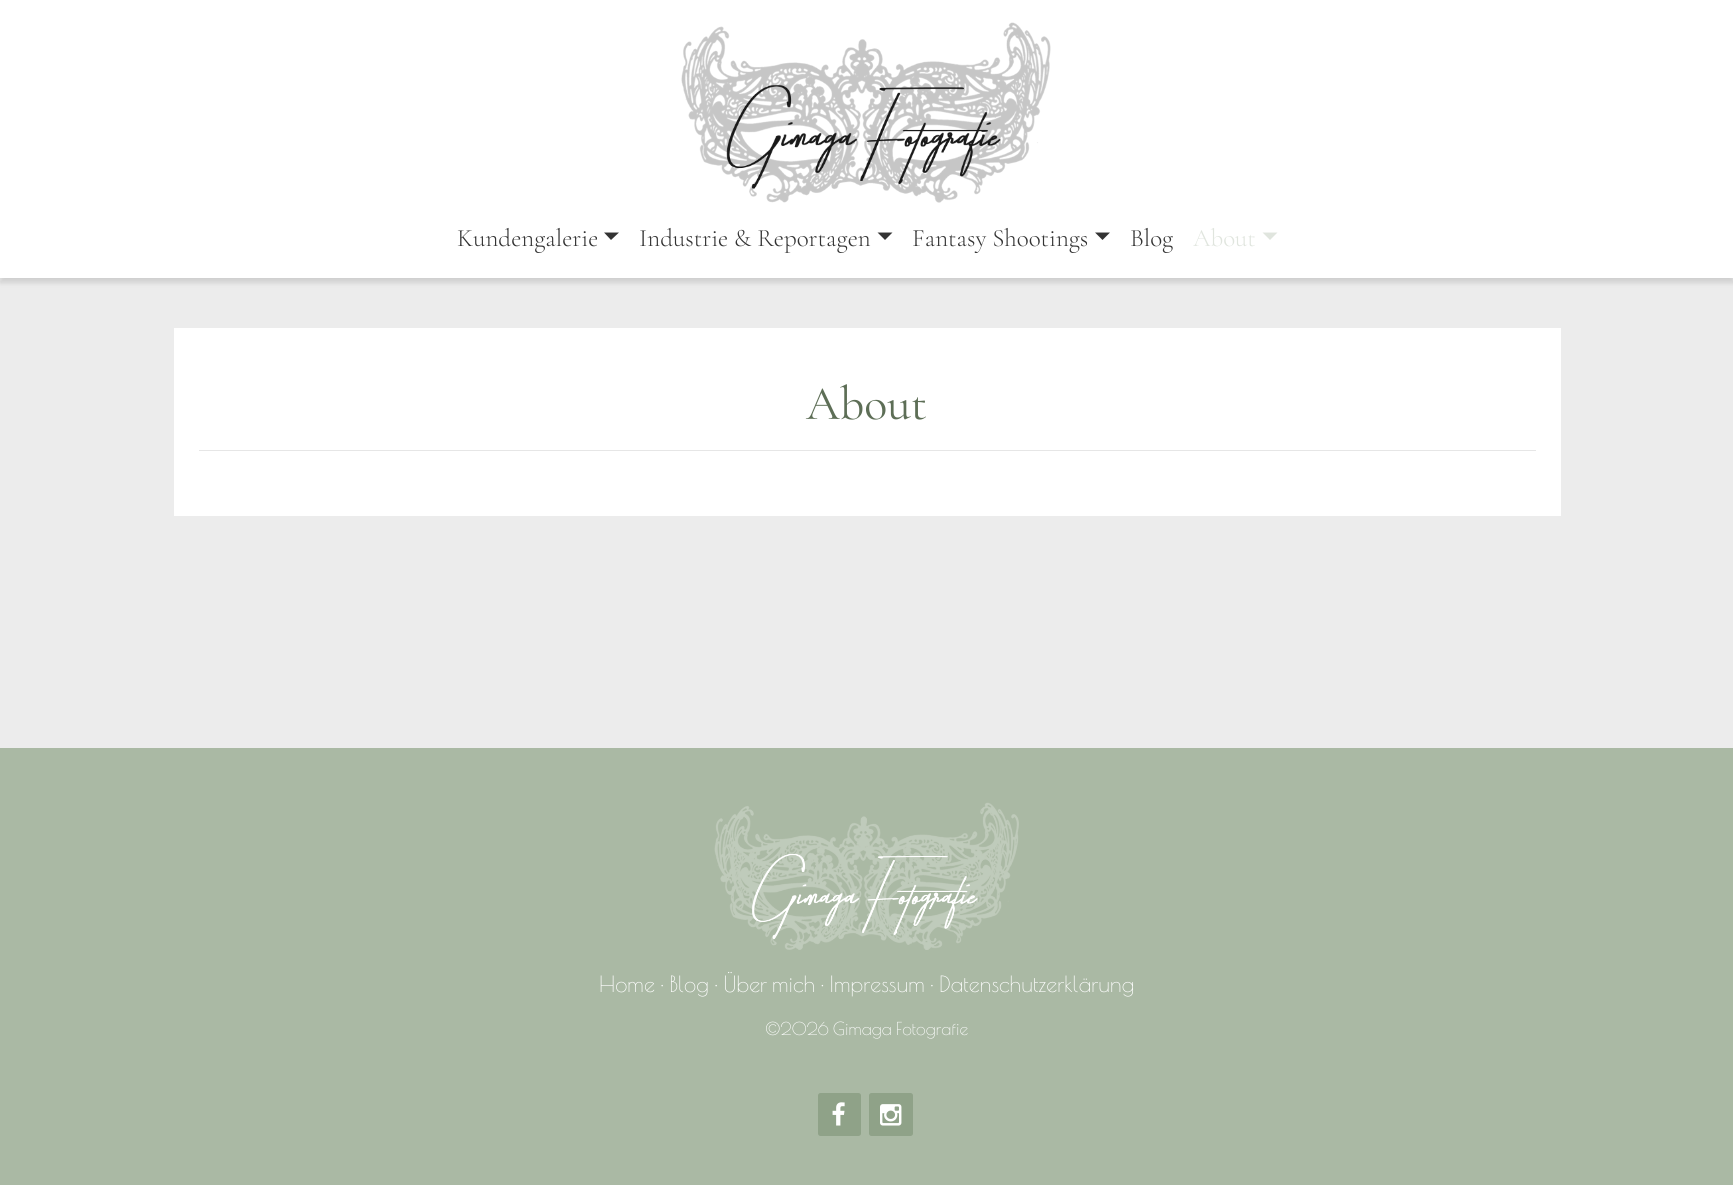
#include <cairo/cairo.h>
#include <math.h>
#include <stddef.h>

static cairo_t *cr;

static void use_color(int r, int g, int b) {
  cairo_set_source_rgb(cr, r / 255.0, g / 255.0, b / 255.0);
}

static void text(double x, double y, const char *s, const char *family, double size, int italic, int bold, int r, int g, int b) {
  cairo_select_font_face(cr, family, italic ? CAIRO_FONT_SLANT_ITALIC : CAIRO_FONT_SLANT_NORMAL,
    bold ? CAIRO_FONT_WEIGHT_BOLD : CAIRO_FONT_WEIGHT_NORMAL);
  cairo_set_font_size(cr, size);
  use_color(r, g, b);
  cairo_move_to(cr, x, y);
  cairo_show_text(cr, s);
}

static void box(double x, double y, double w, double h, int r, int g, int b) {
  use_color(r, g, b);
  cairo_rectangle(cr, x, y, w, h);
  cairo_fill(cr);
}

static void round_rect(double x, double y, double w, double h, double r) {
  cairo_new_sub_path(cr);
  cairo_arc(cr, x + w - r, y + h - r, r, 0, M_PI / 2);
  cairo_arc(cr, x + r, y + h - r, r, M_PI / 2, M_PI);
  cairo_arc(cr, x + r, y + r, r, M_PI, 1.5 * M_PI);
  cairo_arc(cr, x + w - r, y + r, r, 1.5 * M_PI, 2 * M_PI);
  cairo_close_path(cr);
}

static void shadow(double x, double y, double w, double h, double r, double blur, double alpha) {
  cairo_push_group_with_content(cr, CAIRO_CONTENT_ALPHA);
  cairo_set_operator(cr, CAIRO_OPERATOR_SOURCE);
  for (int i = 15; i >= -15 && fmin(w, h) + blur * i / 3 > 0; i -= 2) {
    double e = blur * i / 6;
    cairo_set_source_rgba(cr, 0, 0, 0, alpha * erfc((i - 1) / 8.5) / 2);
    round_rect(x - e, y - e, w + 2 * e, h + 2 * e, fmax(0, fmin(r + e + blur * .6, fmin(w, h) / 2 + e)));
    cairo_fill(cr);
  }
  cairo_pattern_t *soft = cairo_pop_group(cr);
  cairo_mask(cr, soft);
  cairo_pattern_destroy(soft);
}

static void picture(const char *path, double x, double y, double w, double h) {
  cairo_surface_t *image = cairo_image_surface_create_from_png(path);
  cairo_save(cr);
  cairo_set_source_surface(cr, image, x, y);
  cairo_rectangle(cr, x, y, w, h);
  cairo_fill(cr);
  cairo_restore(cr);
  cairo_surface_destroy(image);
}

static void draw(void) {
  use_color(236, 236, 236);
  cairo_paint(cr);
  use_color(0, 0, 0);
  shadow(0, 5, 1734, 278, 0, 2.5, 0.12);
  box(0, 0, 1733, 278, 255, 255, 255);
  picture("img_01.png", 681, 22, 370, 181);
  use_color(51, 51, 51);
  cairo_new_path(cr);
  cairo_move_to(cr, 604, 232.5);
  cairo_line_to(cr, 619, 232.5);
  cairo_line_to(cr, 611, 240);
  cairo_close_path(cr);
  cairo_fill(cr);
  cairo_new_path(cr);
  cairo_move_to(cr, 877.5, 232.5);
  cairo_line_to(cr, 892.5, 232.5);
  cairo_line_to(cr, 885, 240);
  cairo_close_path(cr);
  cairo_fill(cr);
  cairo_new_path(cr);
  cairo_move_to(cr, 1095, 232.5);
  cairo_line_to(cr, 1110, 232.5);
  cairo_line_to(cr, 1102.5, 240);
  cairo_close_path(cr);
  cairo_fill(cr);
  use_color(224, 229, 222);
  cairo_new_path(cr);
  cairo_move_to(cr, 1262.5, 232.5);
  cairo_line_to(cr, 1277.5, 232.5);
  cairo_line_to(cr, 1270, 240);
  cairo_close_path(cr);
  cairo_fill(cr);
  box(174, 328, 1387, 188, 255, 255, 255);
  box(199, 450, 1337, 1, 230, 230, 230);
  box(0, 748, 1733, 437, 170, 185, 164);
  picture("img_02.png", 714, 802, 305, 148);
  use_color(143, 162, 136);
  round_rect(818, 1093, 43, 43, 2.5);
  cairo_fill(cr);
  picture("img_03.png", 832, 1102, 13, 24);
  round_rect(869, 1093, 44, 43, 2.5);
  cairo_fill(cr);
  picture("img_04.png", 880, 1104, 22, 22);
  text(457, 246, "Kundengalerie", "Cormorant Garamond Light", 25, 0, 0, 51, 51, 51);
  text(639, 246, "Industrie & Reportagen", "Cormorant Garamond Light", 25, 0, 0, 51, 51, 51);
  text(912, 246, "Fantasy Shootings", "Cormorant Garamond Light", 25, 0, 0, 51, 51, 51);
  text(1130, 246, "Blog", "Cormorant Garamond Light", 25, 0, 0, 51, 51, 51);
  text(1193, 246, "About", "Cormorant Garamond Light", 25, 0, 0, 224, 229, 222);
  text(806, 419, "About", "Cormorant Garamond", 48, 0, 0, 93, 110, 86);
  text(599, 992, "Home · Blog · Über mich · Impressum · Datenschutzerklärung", "Poiret One", 22, 0, 0, 255, 255, 255);
  text(765, 1035, "©2026 Gimaga Fotografie", "Poiret One", 17.5, 0, 0, 255, 255, 255);
}

int main(void) {
  cairo_surface_t *surface = cairo_image_surface_create(CAIRO_FORMAT_RGB24, 1733, 1185);
  cr = cairo_create(surface);
  cairo_font_options_t *options = cairo_font_options_create();
  cairo_font_options_set_hint_metrics(options, CAIRO_HINT_METRICS_OFF);
  cairo_font_options_set_hint_style(options, CAIRO_HINT_STYLE_NONE);
  cairo_set_font_options(cr, options);
  cairo_set_miter_limit(cr, 4);
  draw();
  cairo_surface_write_to_png(surface, "out.png");
  cairo_font_options_destroy(options);
  cairo_destroy(cr);
  cairo_surface_destroy(surface);
  return 0;
}
